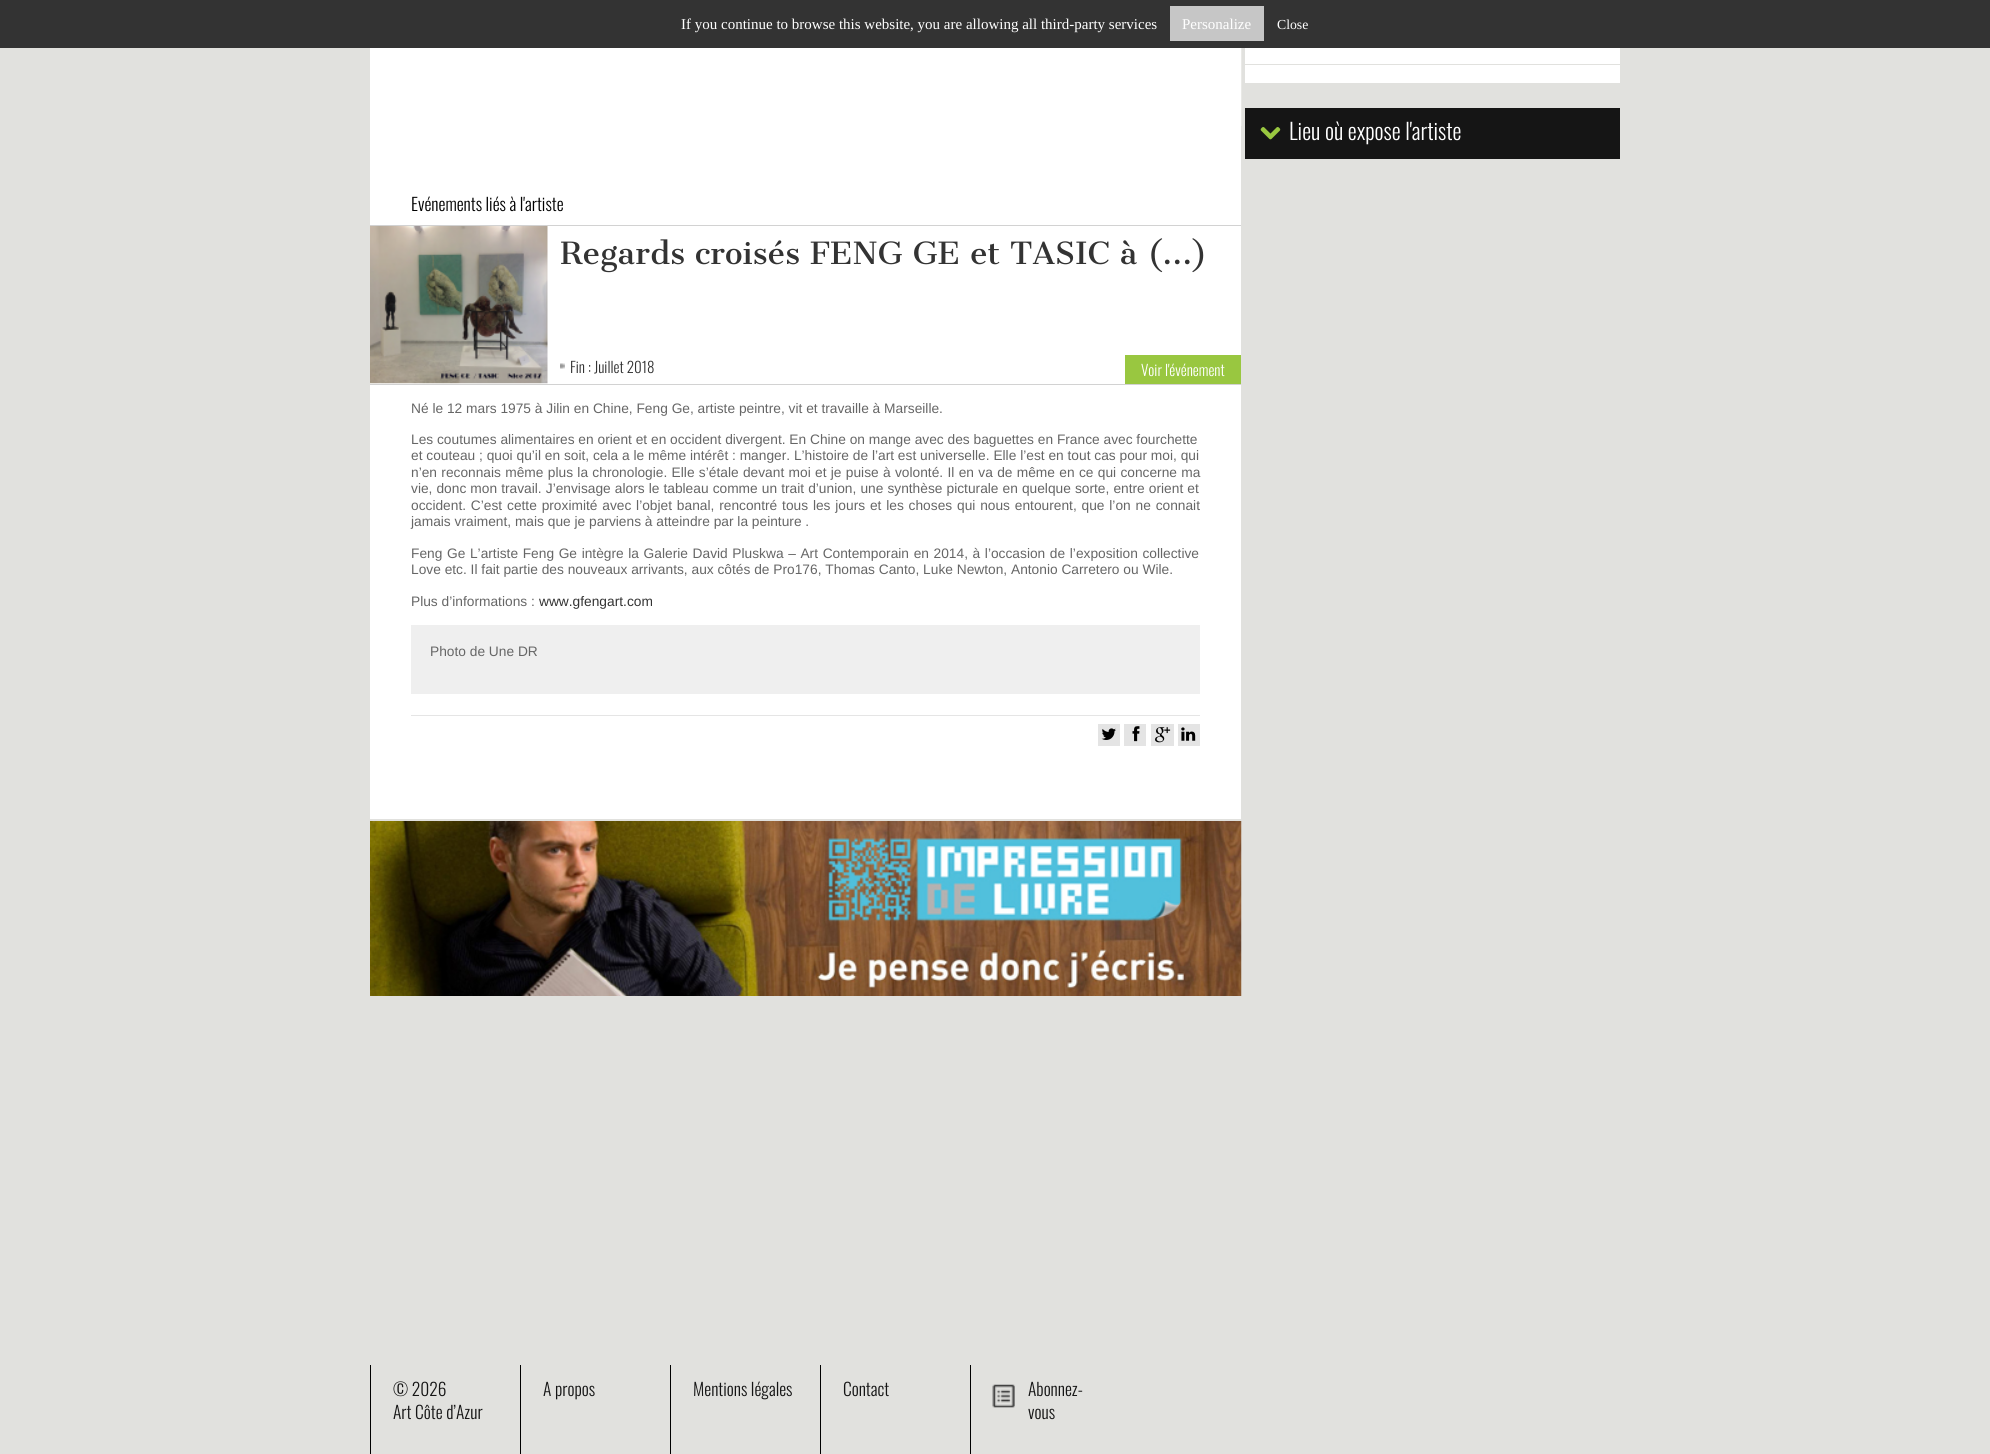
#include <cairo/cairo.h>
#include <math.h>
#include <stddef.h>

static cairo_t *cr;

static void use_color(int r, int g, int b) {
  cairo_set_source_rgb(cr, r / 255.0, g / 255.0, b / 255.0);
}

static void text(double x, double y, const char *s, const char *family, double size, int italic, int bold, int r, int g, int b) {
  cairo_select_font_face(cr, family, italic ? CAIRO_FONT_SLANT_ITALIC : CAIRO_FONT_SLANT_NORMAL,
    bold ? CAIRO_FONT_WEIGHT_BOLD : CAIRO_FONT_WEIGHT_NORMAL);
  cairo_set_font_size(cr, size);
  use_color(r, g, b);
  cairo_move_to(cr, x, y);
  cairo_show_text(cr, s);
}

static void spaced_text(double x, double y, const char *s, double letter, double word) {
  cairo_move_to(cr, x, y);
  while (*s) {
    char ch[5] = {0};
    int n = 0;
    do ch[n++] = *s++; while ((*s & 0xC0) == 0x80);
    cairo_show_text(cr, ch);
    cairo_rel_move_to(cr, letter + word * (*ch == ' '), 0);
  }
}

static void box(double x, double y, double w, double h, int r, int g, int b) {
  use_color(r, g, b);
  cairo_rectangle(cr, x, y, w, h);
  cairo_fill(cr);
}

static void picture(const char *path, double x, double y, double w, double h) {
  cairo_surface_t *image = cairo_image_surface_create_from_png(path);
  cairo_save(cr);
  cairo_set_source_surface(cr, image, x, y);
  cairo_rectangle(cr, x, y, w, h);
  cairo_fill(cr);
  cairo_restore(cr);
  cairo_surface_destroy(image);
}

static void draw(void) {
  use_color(225, 225, 222);
  cairo_paint(cr);
  box(0, 0, 1990, 48, 51, 51, 51);
  box(1170, 6, 94, 35, 198, 198, 198);
  box(1245, 48, 375, 16, 255, 255, 255);
  box(1245, 65, 375, 18, 255, 255, 255);
  box(1245, 108, 375, 51, 21, 21, 21);
  picture("img_01.png", 1260, 127, 21, 13);
  box(370, 48, 871, 771, 255, 255, 255);
  picture("img_02.png", 721, 48, 521, 78);
  box(370, 225, 871, 1, 210, 210, 210);
  box(370, 384, 871, 1, 210, 210, 210);
  picture("img_03.png", 370, 226, 178, 158);
  picture("img_04.png", 560, 363, 5, 6);
  box(1125, 355, 116, 29, 153, 199, 64);
  box(411, 625, 789, 69, 239, 239, 239);
  box(411, 715, 789, 1, 229, 229, 229);
  box(1098, 724, 22, 22, 228, 228, 228);
  picture("img_05.png", 1101, 728, 15, 12);
  box(1124, 724, 22, 22, 228, 228, 228);
  picture("img_06.png", 1132, 726, 8, 16);
  box(1151, 724, 23, 22, 228, 228, 228);
  picture("img_07.png", 1155, 727, 16, 16);
  box(1178, 724, 22, 22, 228, 228, 228);
  picture("img_08.png", 1181, 727, 15, 14);
  picture("img_09.png", 370, 821, 872, 175);
  box(370, 1365, 1, 89, 0, 0, 0);
  box(520, 1365, 1, 89, 0, 0, 0);
  box(670, 1365, 1, 89, 0, 0, 0);
  box(820, 1365, 1, 89, 0, 0, 0);
  box(970, 1365, 1, 89, 0, 0, 0);
  picture("img_10.png", 992, 1384, 23, 24);
  text(681, 29, "If you continue to browse this website, you are allowing all third-party services", "Liberation Serif", 15, 0, 0, 255, 255, 255);
  text(1182, 29, "Personalize", "Liberation Serif", 15, 0, 0, 255, 255, 255);
  text(1277, 29, "Close", "Liberation Serif", 13.75, 0, 0, 255, 255, 255);
  text(1289, 140, "Lieu où expose l'artiste", "Oswald Light", 22.5, 0, 0, 255, 255, 255);
  text(411, 211, "Evénements liés à l'artiste", "Oswald Light", 17.5, 0, 0, 0, 0, 0);
  text(560, 264, "Regards croisés FENG GE et TASIC à (…)", "Cantata One", 30, 0, 0, 51, 51, 51);
  text(570, 373, "Fin : Juillet 2018", "Oswald Light", 15, 0, 0, 51, 51, 51);
  text(1141, 376, "Voir l'événement", "Oswald Light", 15, 0, 0, 255, 255, 255);
  text(411, 413, "Né le 12 mars 1975 à Jilin en Chine, Feng Ge, artiste peintre, vit et travaille à Marseille.", "Liberation Sans", 13.75, 0, 0, 102, 102, 102);
  text(411, 444, "Les coutumes alimentaires en orient et en occident divergent. En Chine on mange avec des baguettes en France avec fourchette", "Liberation Sans", 13.75, 0, 0, 102, 102, 102);
  text(411, 460, "et couteau ; quoi qu’il en soit, cela a le même intérêt : manger. L’histoire de l’art est universelle. Elle l’est en tout cas pour moi, qui", "Liberation Sans", 13.75, 0, 0, 102, 102, 102);
  spaced_text(411, 477, "n’en reconnais même plus la chronologie. Elle s’étale devant moi et je puise à volonté. Il en va de même en ce qui concerne ma", 0, 0.5);
  spaced_text(411, 493, "vie, donc mon travail. J’envisage alors le tableau comme un trait d’union, une synthèse picturale en quelque sorte, entre orient et", 0, 0.25);
  spaced_text(411, 510, "occident. C’est cette proximité avec l’objet banal, rencontré tous les jours et les choses qui nous entourent, que l’on ne connait", 0, 1);
  text(411, 526, "jamais vraiment, mais que je parviens à atteindre par la peinture .", "Liberation Sans", 13.75, 0, 0, 102, 102, 102);
  spaced_text(411, 558, "Feng Ge L’artiste Feng Ge intègre la Galerie David Pluskwa – Art Contemporain en 2014, à l’occasion de l’exposition collective", 0, 0.8);
  text(411, 574, "Love etc. Il fait partie des nouveaux arrivants, aux côtés de Pro176, Thomas Canto, Luke Newton, Antonio Carretero ou Wile.", "Liberation Sans", 13.75, 0, 0, 102, 102, 102);
  text(411, 606, "Plus d’informations :", "Liberation Sans", 13.75, 0, 0, 102, 102, 102);
  text(539, 606, "www.gfengart.com", "Liberation Sans", 13.75, 0, 0, 51, 51, 51);
  text(430, 656, "Photo de Une DR", "Liberation Sans", 13.75, 0, 0, 102, 102, 102);
  text(393, 1396, "© 2026", "Oswald Light", 17.5, 0, 0, 21, 21, 21);
  text(393, 1419, "Art Côte d’Azur", "Oswald Light", 17.5, 0, 0, 21, 21, 21);
  text(543, 1396, "A propos", "Oswald Light", 17.5, 0, 0, 21, 21, 21);
  text(693, 1396, "Mentions légales", "Oswald Light", 17.5, 0, 0, 21, 21, 21);
  text(843, 1396, "Contact", "Oswald Light", 17.5, 0, 0, 21, 21, 21);
  text(1028, 1396, "Abonnez-", "Oswald Light", 17.5, 0, 0, 21, 21, 21);
  text(1028, 1419, "vous", "Oswald Light", 17.5, 0, 0, 21, 21, 21);
}

int main(void) {
  cairo_surface_t *surface = cairo_image_surface_create(CAIRO_FORMAT_RGB24, 1990, 1454);
  cr = cairo_create(surface);
  cairo_font_options_t *options = cairo_font_options_create();
  cairo_font_options_set_hint_metrics(options, CAIRO_HINT_METRICS_OFF);
  cairo_font_options_set_hint_style(options, CAIRO_HINT_STYLE_NONE);
  cairo_set_font_options(cr, options);
  cairo_set_miter_limit(cr, 4);
  draw();
  cairo_surface_write_to_png(surface, "out.png");
  cairo_font_options_destroy(options);
  cairo_destroy(cr);
  cairo_surface_destroy(surface);
  return 0;
}
